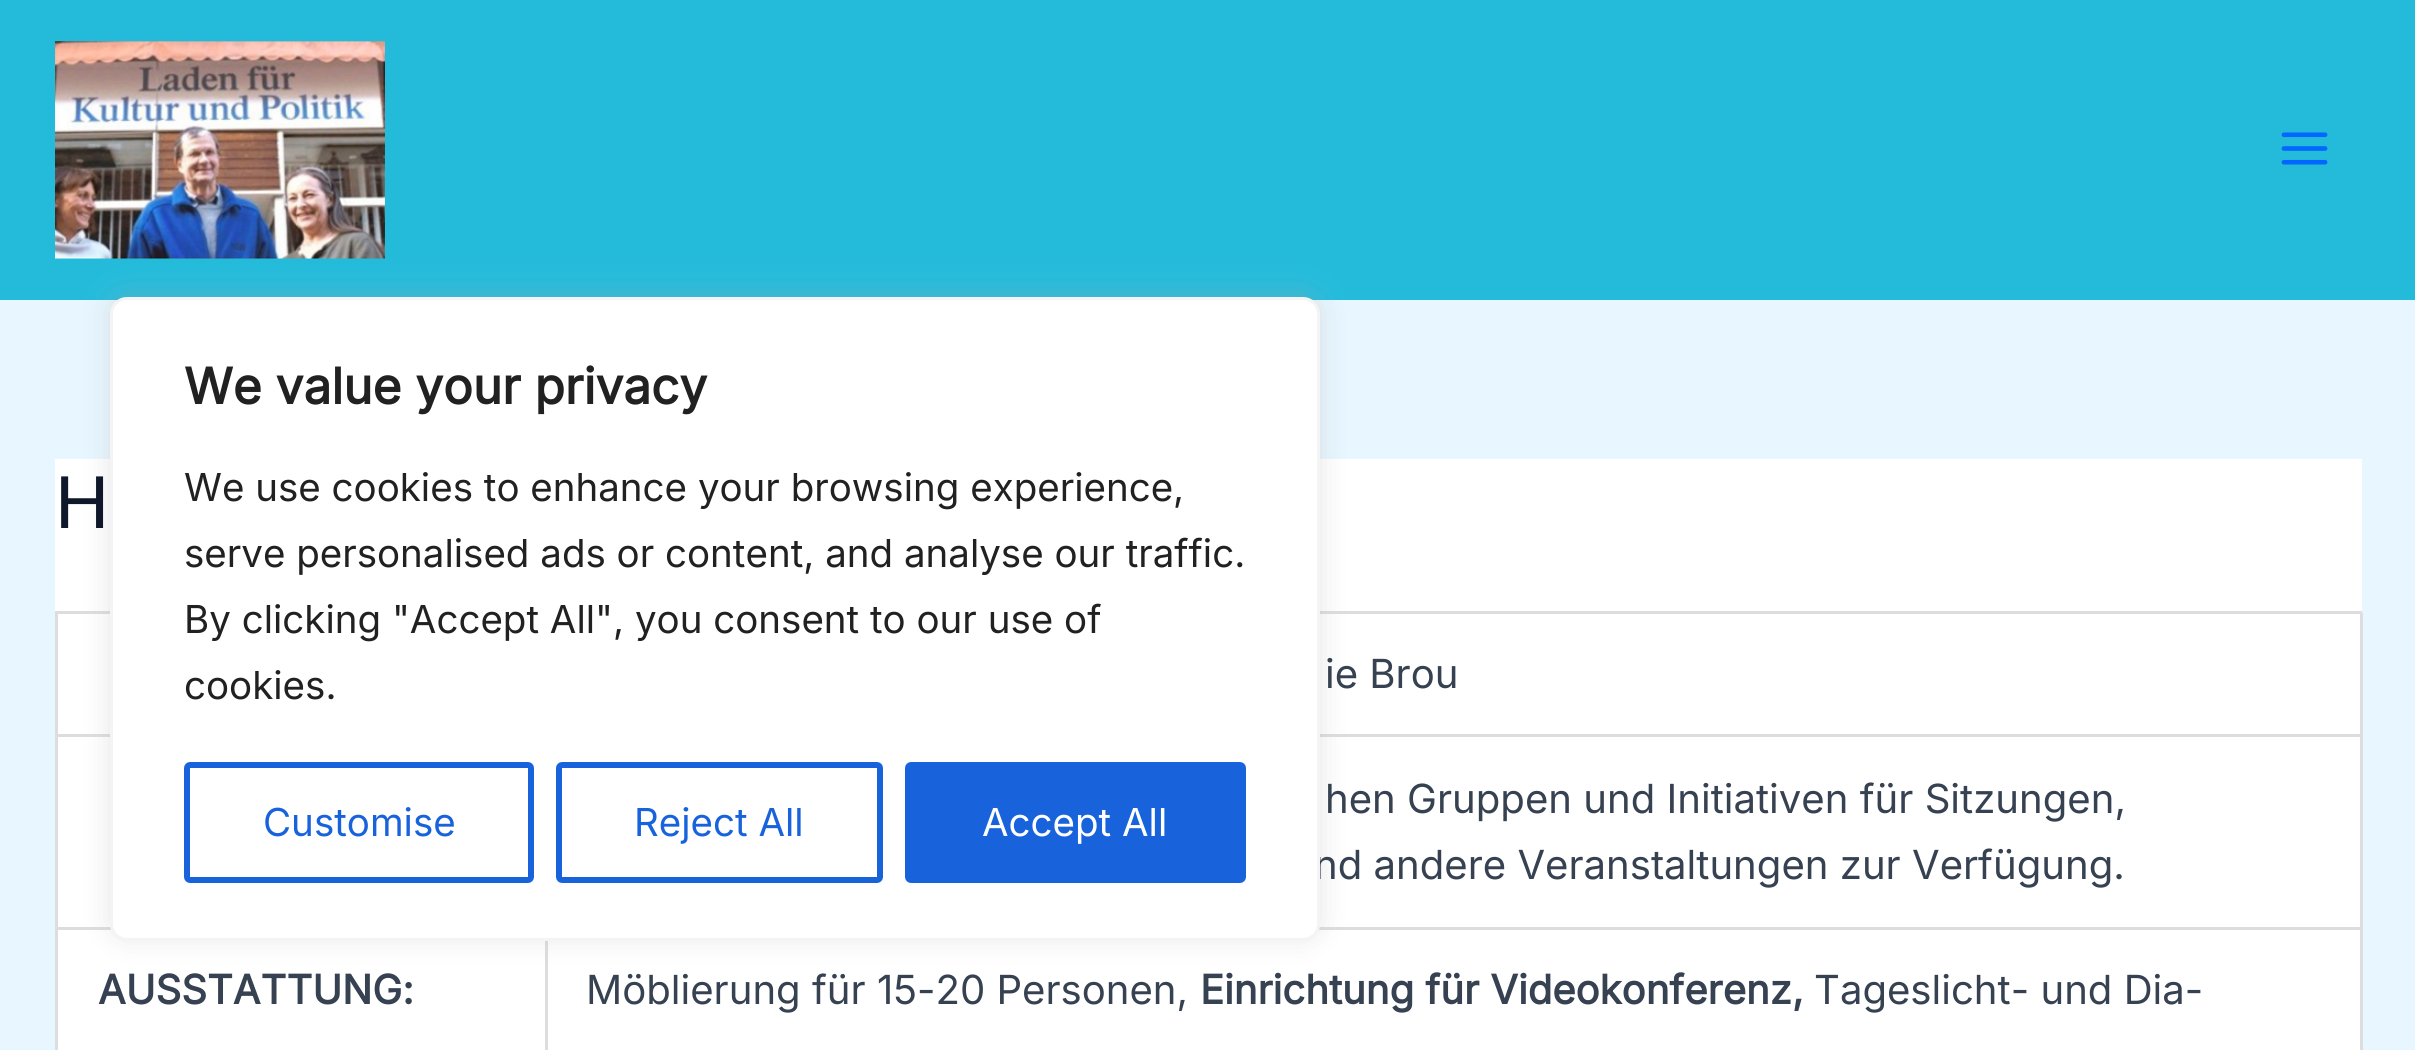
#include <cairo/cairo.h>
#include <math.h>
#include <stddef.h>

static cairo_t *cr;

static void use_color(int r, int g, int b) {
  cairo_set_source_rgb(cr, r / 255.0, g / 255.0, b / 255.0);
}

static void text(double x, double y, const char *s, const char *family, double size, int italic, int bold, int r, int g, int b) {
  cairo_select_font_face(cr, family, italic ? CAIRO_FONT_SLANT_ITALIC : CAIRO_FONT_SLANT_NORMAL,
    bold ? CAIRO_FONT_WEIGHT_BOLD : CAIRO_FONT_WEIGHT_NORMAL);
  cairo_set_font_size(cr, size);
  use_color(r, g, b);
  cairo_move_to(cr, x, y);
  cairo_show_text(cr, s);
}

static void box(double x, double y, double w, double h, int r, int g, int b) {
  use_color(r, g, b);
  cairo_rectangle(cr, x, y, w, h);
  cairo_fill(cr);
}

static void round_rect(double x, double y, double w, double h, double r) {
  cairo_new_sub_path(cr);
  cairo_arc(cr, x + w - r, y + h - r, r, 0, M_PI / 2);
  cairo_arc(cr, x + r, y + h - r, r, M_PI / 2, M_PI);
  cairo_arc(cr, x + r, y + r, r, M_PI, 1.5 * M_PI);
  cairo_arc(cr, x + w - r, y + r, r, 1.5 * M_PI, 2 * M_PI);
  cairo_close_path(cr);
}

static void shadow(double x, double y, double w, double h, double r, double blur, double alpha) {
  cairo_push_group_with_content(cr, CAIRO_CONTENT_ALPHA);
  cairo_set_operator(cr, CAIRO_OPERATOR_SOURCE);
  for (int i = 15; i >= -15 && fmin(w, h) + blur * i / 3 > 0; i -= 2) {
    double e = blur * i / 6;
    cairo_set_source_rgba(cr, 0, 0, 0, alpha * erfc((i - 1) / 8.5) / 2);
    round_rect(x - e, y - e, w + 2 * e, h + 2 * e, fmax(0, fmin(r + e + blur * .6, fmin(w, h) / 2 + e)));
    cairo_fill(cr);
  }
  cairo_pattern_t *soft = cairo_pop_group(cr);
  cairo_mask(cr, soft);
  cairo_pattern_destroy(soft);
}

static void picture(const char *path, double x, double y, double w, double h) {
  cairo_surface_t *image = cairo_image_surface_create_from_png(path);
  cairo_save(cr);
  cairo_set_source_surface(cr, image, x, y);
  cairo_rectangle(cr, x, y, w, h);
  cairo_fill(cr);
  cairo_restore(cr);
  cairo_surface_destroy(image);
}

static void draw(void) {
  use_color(231, 246, 255);
  cairo_paint(cr);
  box(0, 0, 2415, 300, 36, 187, 219);
  picture("img_01.png", 55, 41, 330, 218);
  box(55, 459, 2307, 591, 255, 255, 255);
  box(55, 611, 2307, 3, 221, 221, 221);
  box(2360, 613, 3, 437, 221, 221, 221);
  box(1320, 734, 1042, 3, 221, 221, 221);
  box(58, 734, 52, 3, 221, 221, 221);
  box(1318, 927, 1044, 3, 221, 221, 221);
  box(58, 927, 54, 3, 221, 221, 221);
  box(545, 941, 3, 109, 221, 221, 221);
  use_color(172, 171, 171);
  shadow(110, 294, 1210, 644, 17, 14, 0.3);
  picture("img_02.png", 2281, 132, 47, 33);
  box(55, 611, 3, 439, 221, 221, 221);
  text(55, 528, "H", "Liberation Sans", 75, 0, 0, 15, 23, 42);
  text(1325, 688, "ie Brou", "Inter", 40.1, 0, 0, 54, 65, 81);
  text(1325, 813, "hen Gruppen und Initiativen für Sitzungen,", "Inter", 40.1, 0, 0, 54, 65, 81);
  text(1314, 879, "nd andere Veranstaltungen zur Verfügung.", "Inter", 40.1, 0, 0, 54, 65, 81);
  use_color(255, 255, 255);
  round_rect(111.5, 298.5, 1207, 641, 15.5);
  cairo_fill_preserve(cr);
  use_color(244, 244, 244);
  cairo_set_line_width(cr, 3);
  cairo_stroke(cr);
  use_color(24, 99, 220);
  round_rect(908, 765, 335, 115, 3);
  cairo_fill_preserve(cr);
  cairo_set_line_width(cr, 6);
  cairo_stroke(cr);
  text(982, 836, "Accept All", "Inter", 38.5, 0, 0, 255, 255, 255);
  round_rect(559, 765, 321, 115, 3);
  use_color(24, 99, 220);
  cairo_stroke(cr);
  text(634, 836, "Reject All", "Inter", 38.5, 0, 0, 24, 99, 220);
  round_rect(187, 765, 344, 115, 3);
  cairo_stroke(cr);
  text(263, 836, "Customise", "Inter", 38.5, 0, 0, 24, 99, 220);
  text(184, 699, "cookies.", "Inter", 38.5, 0, 0, 33, 33, 33);
  text(184, 633, "By clicking \"Accept All\", you consent to our use of", "Inter", 38.5, 0, 0, 33, 33, 33);
  text(184, 567, "serve personalised ads or content, and analyse our traffic.", "Inter", 38.5, 0, 0, 33, 33, 33);
  text(184, 501, "We use cookies to enhance your browsing experience,", "Inter", 38.5, 0, 0, 33, 33, 33);
  text(184, 404, "We value your privacy", "Inter", 49.5, 0, 1, 33, 33, 33);
  text(98, 1004, "AUSSTATTUNG:", "Inter", 40.1, 0, 1, 54, 65, 81);
  text(586, 1004, "Möblierung für 15-20 Personen,", "Inter", 40.1, 0, 0, 54, 65, 81);
  text(1200, 1004, "Einrichtung für Videokonferenz,", "Inter", 40.1, 0, 1, 54, 65, 81);
  text(1814, 1004, "Tageslicht- und Dia-", "Inter", 40.1, 0, 0, 54, 65, 81);
}

int main(void) {
  cairo_surface_t *surface = cairo_image_surface_create(CAIRO_FORMAT_RGB24, 2415, 1050);
  cr = cairo_create(surface);
  cairo_font_options_t *options = cairo_font_options_create();
  cairo_font_options_set_hint_metrics(options, CAIRO_HINT_METRICS_OFF);
  cairo_font_options_set_hint_style(options, CAIRO_HINT_STYLE_NONE);
  cairo_set_font_options(cr, options);
  cairo_set_miter_limit(cr, 4);
  draw();
  cairo_surface_write_to_png(surface, "out.png");
  cairo_font_options_destroy(options);
  cairo_destroy(cr);
  cairo_surface_destroy(surface);
  return 0;
}
